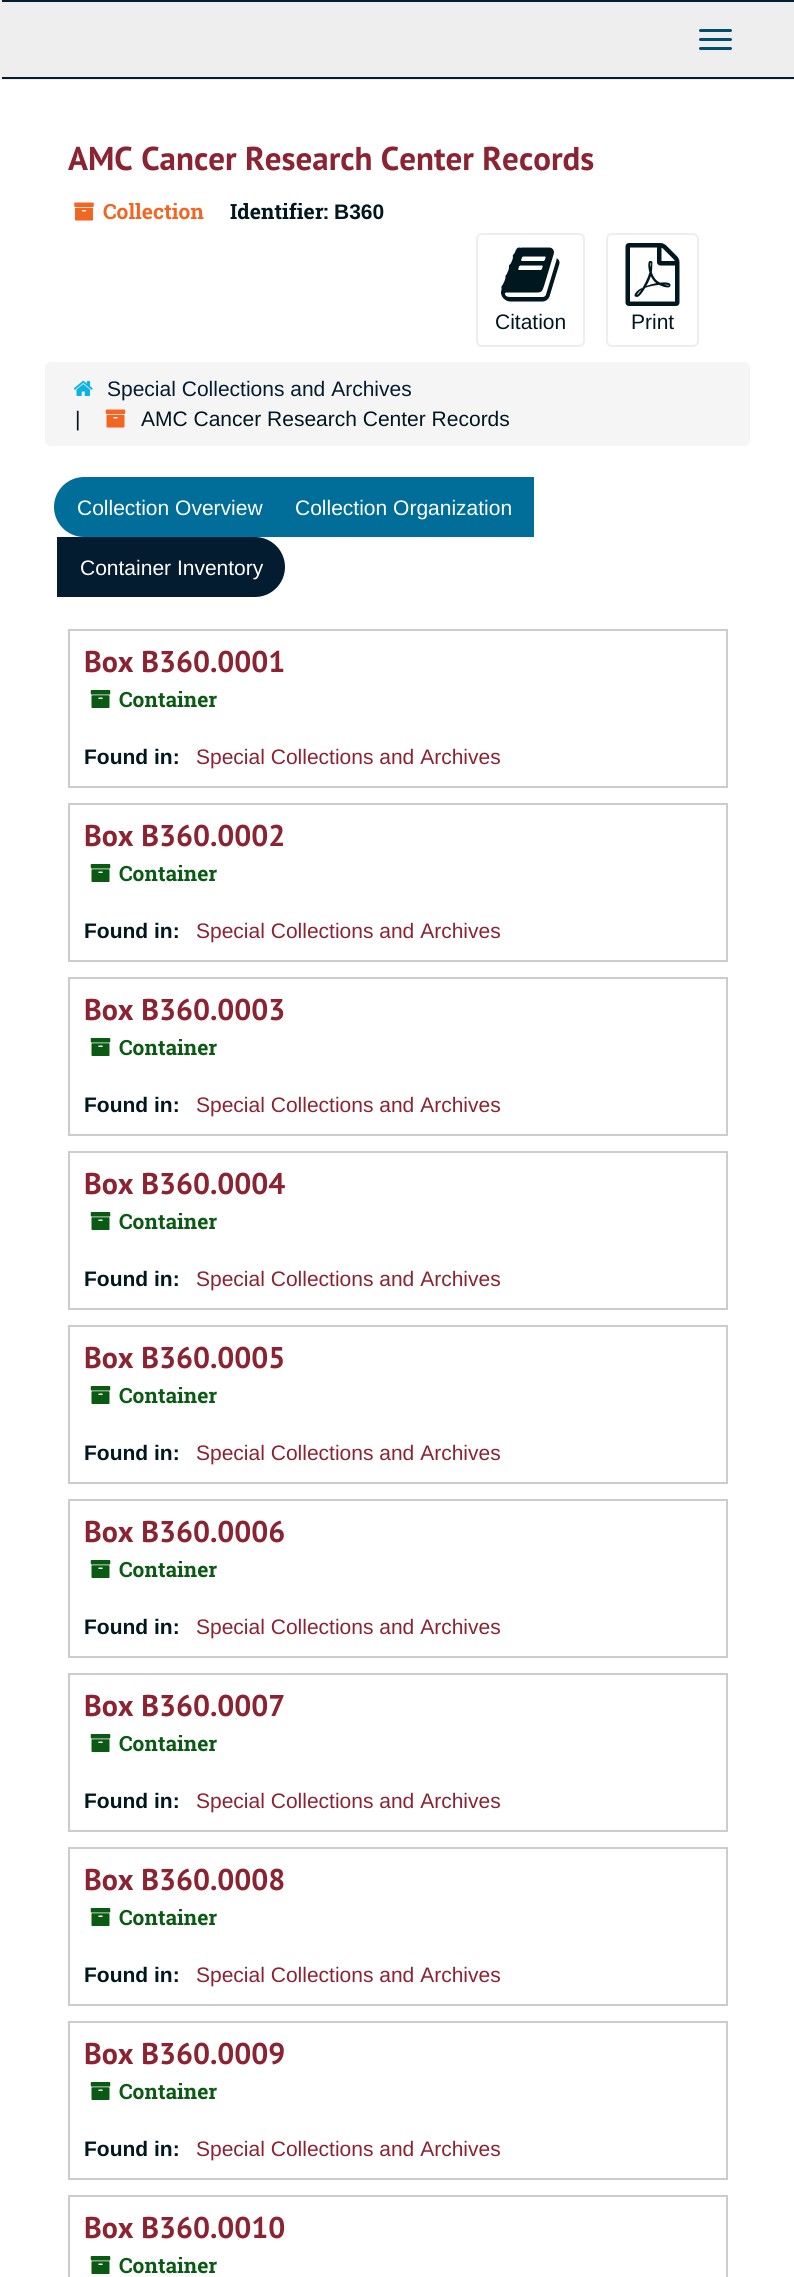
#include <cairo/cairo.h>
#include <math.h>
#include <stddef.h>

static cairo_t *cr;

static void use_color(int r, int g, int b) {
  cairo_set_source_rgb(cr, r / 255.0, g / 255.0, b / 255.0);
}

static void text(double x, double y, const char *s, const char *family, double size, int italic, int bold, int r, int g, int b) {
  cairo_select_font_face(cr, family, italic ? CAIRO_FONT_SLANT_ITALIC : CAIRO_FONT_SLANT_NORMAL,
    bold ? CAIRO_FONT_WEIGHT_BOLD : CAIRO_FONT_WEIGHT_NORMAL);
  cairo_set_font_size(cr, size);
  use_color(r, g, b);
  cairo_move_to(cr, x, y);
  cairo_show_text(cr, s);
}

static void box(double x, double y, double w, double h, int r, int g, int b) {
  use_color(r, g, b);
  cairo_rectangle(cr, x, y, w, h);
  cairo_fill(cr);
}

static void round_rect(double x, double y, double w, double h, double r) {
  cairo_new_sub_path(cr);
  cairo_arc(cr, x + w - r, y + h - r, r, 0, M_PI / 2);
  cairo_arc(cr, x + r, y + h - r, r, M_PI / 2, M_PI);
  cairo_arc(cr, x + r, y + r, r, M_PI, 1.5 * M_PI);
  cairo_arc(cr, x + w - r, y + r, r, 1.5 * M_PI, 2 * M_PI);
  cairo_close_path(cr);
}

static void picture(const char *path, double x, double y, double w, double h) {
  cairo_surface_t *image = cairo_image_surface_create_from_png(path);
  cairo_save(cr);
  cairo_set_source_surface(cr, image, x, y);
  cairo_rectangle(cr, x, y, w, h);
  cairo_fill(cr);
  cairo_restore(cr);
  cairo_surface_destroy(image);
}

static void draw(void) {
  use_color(255, 255, 255);
  cairo_paint(cr);
  box(0, 0, 794, 80, 238, 238, 238);
  box(2, 0, 792, 2, 4, 28, 47);
  box(2, 77, 792, 2, 4, 28, 47);
  use_color(0, 79, 111);
  round_rect(699, 29, 33, 3, 1.5);
  cairo_fill(cr);
  round_rect(699, 38, 33, 3, 1.5);
  cairo_fill(cr);
  round_rect(699, 47, 33, 3, 1.5);
  cairo_fill(cr);
  picture("img_01.png", 74, 202, 20, 19);
  round_rect(477, 234, 107, 112, 5);
  use_color(238, 238, 238);
  cairo_stroke(cr);
  picture("img_02.png", 501, 247, 59, 55);
  round_rect(607, 234, 91, 112, 5);
  cairo_stroke(cr);
  picture("img_03.png", 625, 243, 55, 63);
  use_color(245, 245, 245);
  round_rect(45, 362, 705, 84, 6);
  cairo_fill(cr);
  picture("img_04.png", 73, 381, 20, 15);
  picture("img_05.png", 105, 409, 21, 19);
  use_color(0, 110, 153);
  cairo_new_path(cr);
  cairo_move_to(cr, 84, 477);
  cairo_line_to(cr, 285, 477);
  cairo_line_to(cr, 285, 537);
  cairo_line_to(cr, 84, 537);
  cairo_curve_to(cr, 67.5, 537, 54, 523.5, 54, 507);
  cairo_curve_to(cr, 54, 490.5, 67.5, 477, 84, 477);
  cairo_close_path(cr);
  cairo_fill(cr);
  box(285, 477, 249, 60, 0, 110, 153);
  use_color(4, 28, 47);
  cairo_new_path(cr);
  cairo_move_to(cr, 57, 537);
  cairo_line_to(cr, 255, 537);
  cairo_curve_to(cr, 271.5, 537, 285, 550.5, 285, 567);
  cairo_curve_to(cr, 285, 583.5, 271.5, 597, 255, 597);
  cairo_line_to(cr, 57, 597);
  cairo_close_path(cr);
  cairo_fill(cr);
  cairo_rectangle(cr, 69, 630, 658, 157);
  use_color(204, 204, 204);
  cairo_stroke(cr);
  picture("img_06.png", 90, 690, 21, 18);
  cairo_rectangle(cr, 69, 804, 658, 157);
  cairo_stroke(cr);
  picture("img_06.png", 90, 864, 21, 18);
  cairo_rectangle(cr, 69, 978, 658, 157);
  cairo_stroke(cr);
  picture("img_06.png", 90, 1038, 21, 18);
  cairo_rectangle(cr, 69, 1152, 658, 157);
  cairo_stroke(cr);
  picture("img_06.png", 90, 1212, 21, 18);
  cairo_rectangle(cr, 69, 1326, 658, 157);
  cairo_stroke(cr);
  picture("img_06.png", 90, 1386, 21, 18);
  cairo_rectangle(cr, 69, 1500, 658, 157);
  cairo_stroke(cr);
  picture("img_06.png", 90, 1560, 21, 18);
  cairo_rectangle(cr, 69, 1674, 658, 157);
  cairo_stroke(cr);
  picture("img_06.png", 90, 1734, 21, 18);
  cairo_rectangle(cr, 69, 1848, 658, 157);
  cairo_stroke(cr);
  picture("img_06.png", 90, 1908, 21, 18);
  cairo_rectangle(cr, 69, 2022, 658, 157);
  cairo_stroke(cr);
  picture("img_06.png", 90, 2082, 21, 18);
  cairo_rectangle(cr, 69, 2196, 658, 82);
  cairo_stroke(cr);
  picture("img_06.png", 90, 2256, 21, 18);
  text(68, 170, "AMC Cancer Research Center Records", "PT Sans", 33, 0, 1, 139, 35, 50);
  text(103, 219, "Collection", "Roboto Slab", 21, 0, 1, 242, 101, 34);
  text(230, 219, "Identifier:", "Roboto Slab", 21, 0, 1, 0, 23, 31);
  text(334, 219, "B360", "Liberation Sans", 21, 0, 1, 0, 23, 31);
  text(495, 329, "Citation", "Liberation Sans", 21, 0, 0, 0, 23, 31);
  text(631, 329, "Print", "Liberation Sans", 21, 0, 0, 0, 23, 31);
  text(107, 396, "Special Collections and Archives", "Liberation Sans", 21, 0, 0, 4, 28, 47);
  text(75, 426, "|", "Liberation Sans", 21, 0, 0, 0, 23, 31);
  text(141, 426, "AMC Cancer Research Center Records", "Liberation Sans", 21, 0, 0, 0, 23, 31);
  text(77, 515, "Collection Overview", "Liberation Sans", 21, 0, 0, 255, 255, 255);
  text(295, 515, "Collection Organization", "Liberation Sans", 21, 0, 0, 255, 255, 255);
  text(80, 575, "Container Inventory", "Liberation Sans", 21, 0, 0, 255, 255, 255);
  text(84, 672, "Box B360.0001", "PT Sans", 30, 0, 1, 139, 35, 50);
  text(119, 707, "Container", "Roboto Slab", 21, 0, 1, 11, 90, 20);
  text(84, 764, "Found in:", "Liberation Sans", 21, 0, 1, 0, 23, 31);
  text(196, 764, "Special Collections and Archives", "Liberation Sans", 21, 0, 0, 139, 35, 50);
  text(84, 846, "Box B360.0002", "PT Sans", 30, 0, 1, 139, 35, 50);
  text(119, 881, "Container", "Roboto Slab", 21, 0, 1, 11, 90, 20);
  text(84, 938, "Found in:", "Liberation Sans", 21, 0, 1, 0, 23, 31);
  text(196, 938, "Special Collections and Archives", "Liberation Sans", 21, 0, 0, 139, 35, 50);
  text(84, 1020, "Box B360.0003", "PT Sans", 30, 0, 1, 139, 35, 50);
  text(119, 1055, "Container", "Roboto Slab", 21, 0, 1, 11, 90, 20);
  text(84, 1112, "Found in:", "Liberation Sans", 21, 0, 1, 0, 23, 31);
  text(196, 1112, "Special Collections and Archives", "Liberation Sans", 21, 0, 0, 139, 35, 50);
  text(84, 1194, "Box B360.0004", "PT Sans", 30, 0, 1, 139, 35, 50);
  text(119, 1229, "Container", "Roboto Slab", 21, 0, 1, 11, 90, 20);
  text(84, 1286, "Found in:", "Liberation Sans", 21, 0, 1, 0, 23, 31);
  text(196, 1286, "Special Collections and Archives", "Liberation Sans", 21, 0, 0, 139, 35, 50);
  text(84, 1368, "Box B360.0005", "PT Sans", 30, 0, 1, 139, 35, 50);
  text(119, 1403, "Container", "Roboto Slab", 21, 0, 1, 11, 90, 20);
  text(84, 1460, "Found in:", "Liberation Sans", 21, 0, 1, 0, 23, 31);
  text(196, 1460, "Special Collections and Archives", "Liberation Sans", 21, 0, 0, 139, 35, 50);
  text(84, 1542, "Box B360.0006", "PT Sans", 30, 0, 1, 139, 35, 50);
  text(119, 1577, "Container", "Roboto Slab", 21, 0, 1, 11, 90, 20);
  text(84, 1634, "Found in:", "Liberation Sans", 21, 0, 1, 0, 23, 31);
  text(196, 1634, "Special Collections and Archives", "Liberation Sans", 21, 0, 0, 139, 35, 50);
  text(84, 1716, "Box B360.0007", "PT Sans", 30, 0, 1, 139, 35, 50);
  text(119, 1751, "Container", "Roboto Slab", 21, 0, 1, 11, 90, 20);
  text(84, 1808, "Found in:", "Liberation Sans", 21, 0, 1, 0, 23, 31);
  text(196, 1808, "Special Collections and Archives", "Liberation Sans", 21, 0, 0, 139, 35, 50);
  text(84, 1890, "Box B360.0008", "PT Sans", 30, 0, 1, 139, 35, 50);
  text(119, 1925, "Container", "Roboto Slab", 21, 0, 1, 11, 90, 20);
  text(84, 1982, "Found in:", "Liberation Sans", 21, 0, 1, 0, 23, 31);
  text(196, 1982, "Special Collections and Archives", "Liberation Sans", 21, 0, 0, 139, 35, 50);
  text(84, 2064, "Box B360.0009", "PT Sans", 30, 0, 1, 139, 35, 50);
  text(119, 2099, "Container", "Roboto Slab", 21, 0, 1, 11, 90, 20);
  text(84, 2156, "Found in:", "Liberation Sans", 21, 0, 1, 0, 23, 31);
  text(196, 2156, "Special Collections and Archives", "Liberation Sans", 21, 0, 0, 139, 35, 50);
  text(84, 2238, "Box B360.0010", "PT Sans", 30, 0, 1, 139, 35, 50);
  text(119, 2273, "Container", "Roboto Slab", 21, 0, 1, 11, 90, 20);
}

int main(void) {
  cairo_surface_t *surface = cairo_image_surface_create(CAIRO_FORMAT_RGB24, 794, 2277);
  cr = cairo_create(surface);
  cairo_font_options_t *options = cairo_font_options_create();
  cairo_font_options_set_hint_metrics(options, CAIRO_HINT_METRICS_OFF);
  cairo_font_options_set_hint_style(options, CAIRO_HINT_STYLE_NONE);
  cairo_set_font_options(cr, options);
  cairo_set_miter_limit(cr, 4);
  draw();
  cairo_surface_write_to_png(surface, "out.png");
  cairo_font_options_destroy(options);
  cairo_destroy(cr);
  cairo_surface_destroy(surface);
  return 0;
}
